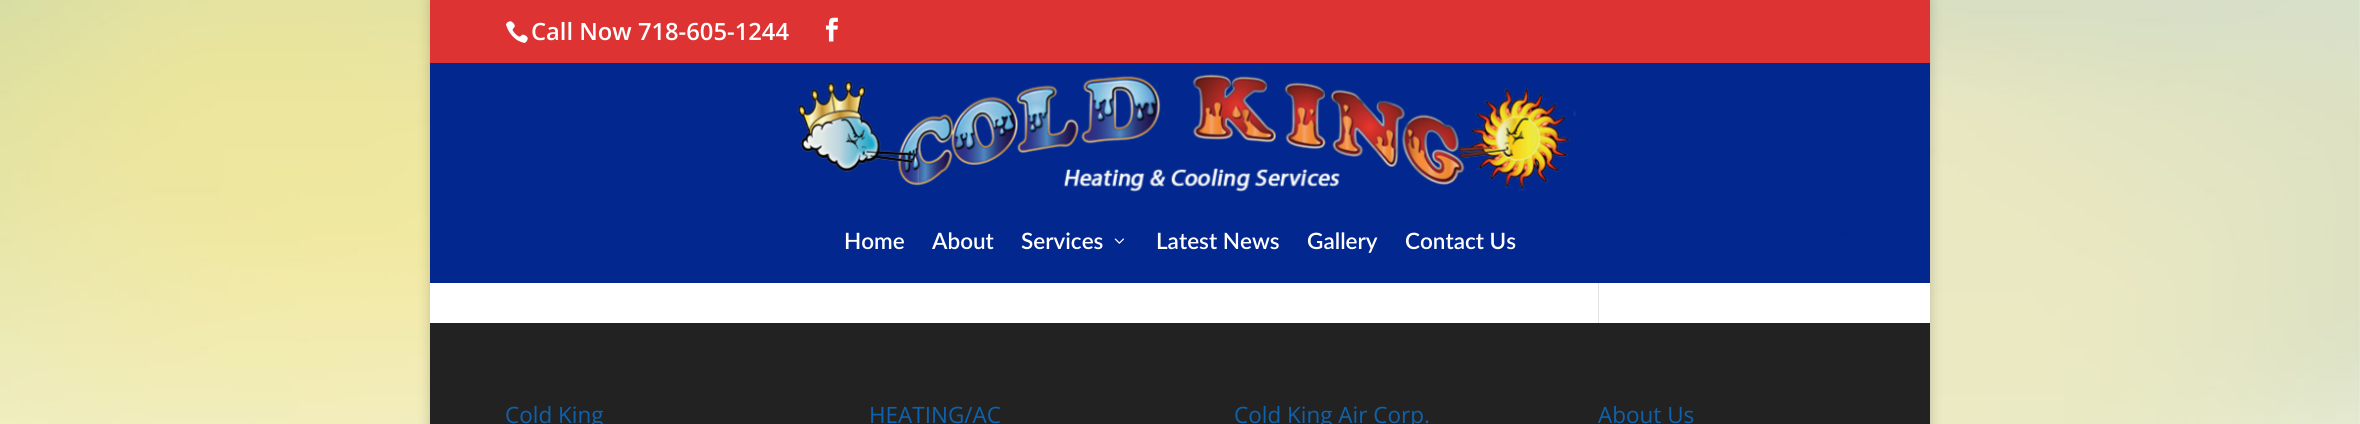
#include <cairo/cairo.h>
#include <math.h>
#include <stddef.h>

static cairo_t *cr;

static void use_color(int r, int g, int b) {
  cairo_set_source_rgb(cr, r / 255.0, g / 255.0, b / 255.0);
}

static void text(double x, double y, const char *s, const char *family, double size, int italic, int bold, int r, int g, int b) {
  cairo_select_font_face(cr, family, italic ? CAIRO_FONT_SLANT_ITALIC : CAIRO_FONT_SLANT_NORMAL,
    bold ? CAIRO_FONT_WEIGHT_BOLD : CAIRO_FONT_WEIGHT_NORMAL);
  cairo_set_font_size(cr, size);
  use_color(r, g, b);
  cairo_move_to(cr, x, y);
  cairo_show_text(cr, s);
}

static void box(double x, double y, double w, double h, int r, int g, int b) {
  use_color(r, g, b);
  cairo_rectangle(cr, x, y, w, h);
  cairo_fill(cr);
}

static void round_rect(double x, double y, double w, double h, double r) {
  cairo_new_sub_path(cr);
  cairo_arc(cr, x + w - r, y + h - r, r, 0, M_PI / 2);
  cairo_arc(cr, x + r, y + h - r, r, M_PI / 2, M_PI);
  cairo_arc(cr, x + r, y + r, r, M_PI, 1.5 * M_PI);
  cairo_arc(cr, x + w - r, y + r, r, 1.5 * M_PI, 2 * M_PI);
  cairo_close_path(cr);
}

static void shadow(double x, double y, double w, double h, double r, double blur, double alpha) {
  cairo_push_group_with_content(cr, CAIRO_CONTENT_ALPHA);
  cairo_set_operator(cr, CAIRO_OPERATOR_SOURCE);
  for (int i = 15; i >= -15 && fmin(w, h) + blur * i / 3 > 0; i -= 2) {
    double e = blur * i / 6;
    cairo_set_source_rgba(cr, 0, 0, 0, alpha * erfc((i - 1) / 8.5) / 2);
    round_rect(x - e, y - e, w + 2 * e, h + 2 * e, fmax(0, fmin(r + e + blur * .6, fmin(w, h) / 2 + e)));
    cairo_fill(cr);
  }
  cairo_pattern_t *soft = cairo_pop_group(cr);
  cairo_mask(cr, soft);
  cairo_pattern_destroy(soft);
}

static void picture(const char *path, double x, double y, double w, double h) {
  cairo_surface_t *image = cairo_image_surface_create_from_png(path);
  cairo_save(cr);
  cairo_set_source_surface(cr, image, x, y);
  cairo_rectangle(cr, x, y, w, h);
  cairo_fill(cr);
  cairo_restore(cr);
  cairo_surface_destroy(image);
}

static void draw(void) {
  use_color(255, 255, 255);
  cairo_paint(cr);
  picture("img_01.png", 0, 0, 2360, 424);
  use_color(0, 0, 0);
  shadow(430, 0, 1500, 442, 0, 6, 0.2);
  box(430, 0, 1500, 63, 221, 51, 51);
  picture("img_02.png", 506, 21, 22, 22);
  picture("img_03.png", 825, 17, 13, 25);
  box(430, 63, 1500, 260, 255, 255, 255);
  box(1598, 63, 1, 260, 226, 226, 226);
  cairo_rectangle(cr, 1636.5, 108.5, 218, 34);
  use_color(187, 187, 187);
  cairo_set_line_width(cr, 1);
  cairo_stroke(cr);
  cairo_new_path(cr);
  cairo_move_to(cr, 1838.5, 122.5);
  cairo_line_to(cr, 1843.5, 127.5);
  cairo_line_to(cr, 1848.5, 122.5);
  use_color(78, 78, 78);
  cairo_set_line_width(cr, 2.5);
  cairo_stroke(cr);
  cairo_rectangle(cr, 1636.5, 215.5, 218, 34);
  use_color(187, 187, 187);
  cairo_set_line_width(cr, 1);
  cairo_stroke(cr);
  cairo_new_path(cr);
  cairo_move_to(cr, 1838.5, 230);
  cairo_line_to(cr, 1843.5, 235);
  cairo_line_to(cr, 1848.5, 230);
  use_color(78, 78, 78);
  cairo_set_line_width(cr, 2.5);
  cairo_stroke(cr);
  cairo_set_source_rgba(cr, 0, 0.149, 0.557, 0.99);
  cairo_rectangle(cr, 430, 63, 1500, 220);
  cairo_fill(cr);
  picture("img_04.png", 797, 74, 779, 118);
  picture("img_05.png", 1114, 238, 10, 6);
  box(430, 323, 1500, 101, 34, 34, 34);
  text(531, 40, "Call Now 718-605-1244", "Open Sans SemiBold", 23.75, 0, 0, 255, 255, 255);
  text(844, 249, "Home", "Lato SemiBold", 22.5, 0, 0, 255, 255, 255);
  text(932, 249, "About", "Lato SemiBold", 22.5, 0, 0, 255, 255, 255);
  text(1021, 249, "Services", "Lato SemiBold", 22.5, 0, 0, 255, 255, 255);
  text(1156, 249, "Latest News", "Lato SemiBold", 22.5, 0, 0, 255, 255, 255);
  text(1307, 249, "Gallery", "Lato SemiBold", 22.5, 0, 0, 255, 255, 255);
  text(1405, 249, "Contact Us", "Lato SemiBold", 22.5, 0, 0, 255, 255, 255);
  text(505, 423, "Cold King", "Open Sans", 22.5, 0, 0, 14, 98, 172);
  text(869, 423, "HEATING/AC", "Open Sans", 22.5, 0, 0, 14, 98, 172);
  text(1234, 423, "Cold King Air Corp.", "Open Sans", 22.5, 0, 0, 14, 98, 172);
  text(1598, 423, "About Us", "Open Sans", 22.5, 0, 0, 14, 98, 172);
}

int main(void) {
  cairo_surface_t *surface = cairo_image_surface_create(CAIRO_FORMAT_RGB24, 2360, 424);
  cr = cairo_create(surface);
  cairo_font_options_t *options = cairo_font_options_create();
  cairo_font_options_set_hint_metrics(options, CAIRO_HINT_METRICS_OFF);
  cairo_font_options_set_hint_style(options, CAIRO_HINT_STYLE_NONE);
  cairo_set_font_options(cr, options);
  cairo_set_miter_limit(cr, 4);
  draw();
  cairo_surface_write_to_png(surface, "out.png");
  cairo_font_options_destroy(options);
  cairo_destroy(cr);
  cairo_surface_destroy(surface);
  return 0;
}
